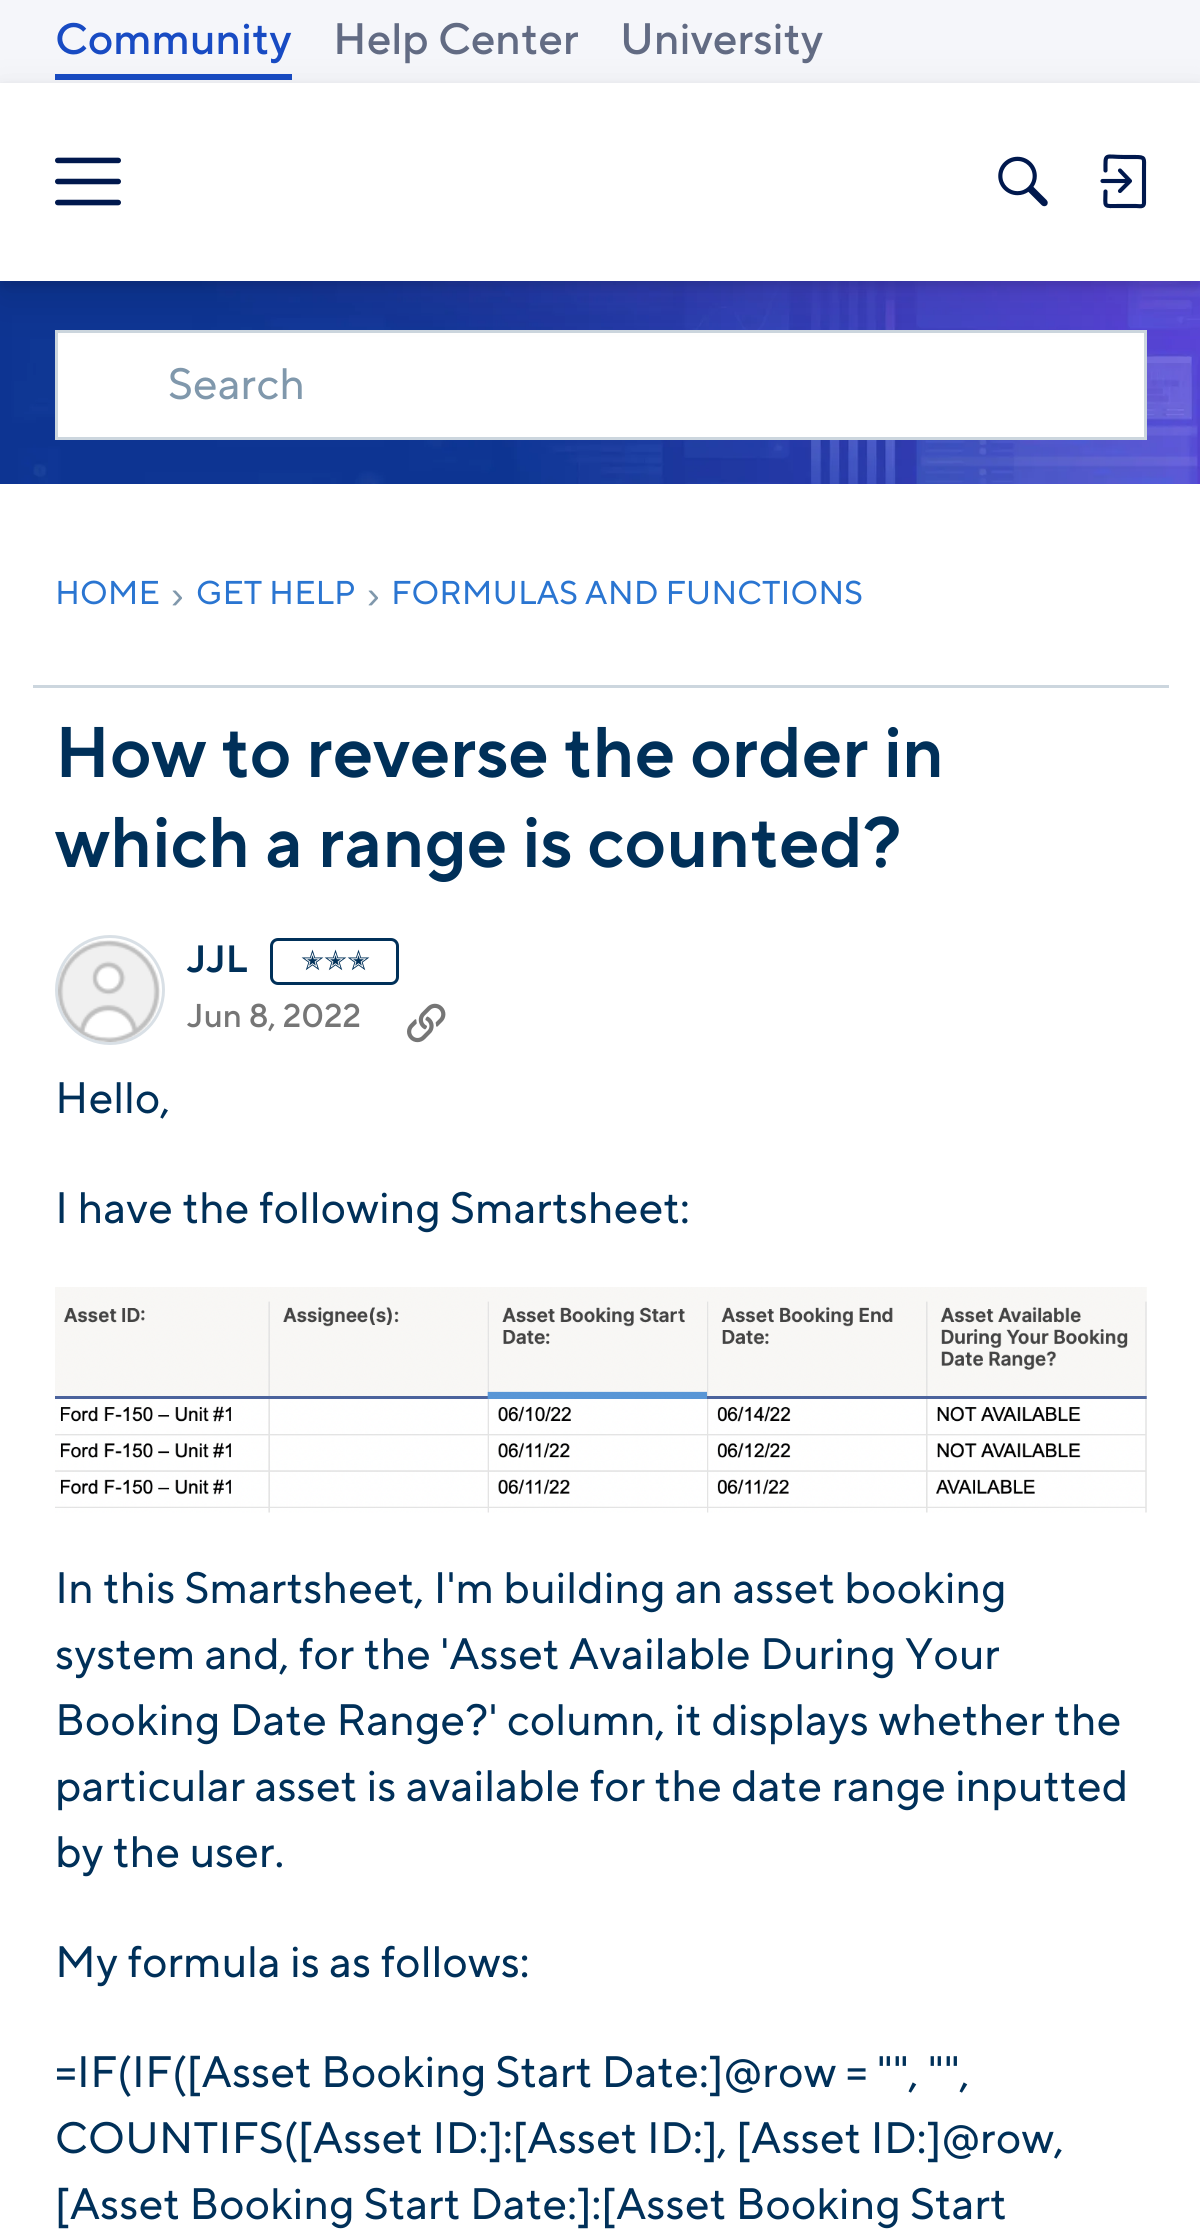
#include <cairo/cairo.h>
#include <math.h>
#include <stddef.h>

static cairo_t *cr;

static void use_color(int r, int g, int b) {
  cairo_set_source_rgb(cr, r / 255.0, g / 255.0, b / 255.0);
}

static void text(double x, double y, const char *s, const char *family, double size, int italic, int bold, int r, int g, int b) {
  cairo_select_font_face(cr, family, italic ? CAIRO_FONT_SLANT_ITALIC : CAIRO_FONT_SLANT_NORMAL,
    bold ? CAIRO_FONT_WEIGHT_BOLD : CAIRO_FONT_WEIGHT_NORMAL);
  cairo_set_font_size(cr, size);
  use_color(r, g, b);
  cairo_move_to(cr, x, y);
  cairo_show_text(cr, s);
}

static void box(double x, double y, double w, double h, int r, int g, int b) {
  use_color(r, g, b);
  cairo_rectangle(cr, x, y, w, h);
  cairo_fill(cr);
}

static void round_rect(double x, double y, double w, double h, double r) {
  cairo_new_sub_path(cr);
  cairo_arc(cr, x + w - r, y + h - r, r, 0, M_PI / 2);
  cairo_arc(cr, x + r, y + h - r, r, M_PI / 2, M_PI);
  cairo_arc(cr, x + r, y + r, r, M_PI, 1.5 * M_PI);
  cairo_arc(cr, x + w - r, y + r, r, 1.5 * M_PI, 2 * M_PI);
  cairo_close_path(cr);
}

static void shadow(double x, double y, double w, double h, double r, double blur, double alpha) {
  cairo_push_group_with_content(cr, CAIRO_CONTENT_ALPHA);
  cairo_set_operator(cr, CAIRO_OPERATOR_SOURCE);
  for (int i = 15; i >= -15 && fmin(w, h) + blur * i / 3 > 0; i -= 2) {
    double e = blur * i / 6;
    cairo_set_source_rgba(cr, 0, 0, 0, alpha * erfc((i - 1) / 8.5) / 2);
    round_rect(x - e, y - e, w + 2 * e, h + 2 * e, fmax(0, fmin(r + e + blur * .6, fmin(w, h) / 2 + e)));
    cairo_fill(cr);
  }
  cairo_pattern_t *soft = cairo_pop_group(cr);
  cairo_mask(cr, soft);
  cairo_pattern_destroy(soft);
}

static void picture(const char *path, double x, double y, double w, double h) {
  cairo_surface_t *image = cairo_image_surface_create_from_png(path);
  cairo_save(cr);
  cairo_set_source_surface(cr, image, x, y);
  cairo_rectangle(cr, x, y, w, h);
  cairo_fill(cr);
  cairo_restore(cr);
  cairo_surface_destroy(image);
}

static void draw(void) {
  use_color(255, 255, 255);
  cairo_paint(cr);
  box(0, 0, 1200, 83, 245, 246, 250);
  box(55, 74, 237, 6, 24, 75, 195);
  picture("img_03.png", 0, 281, 1200, 203);
  use_color(255, 255, 255);
  cairo_rectangle(cr, 56.5, 331.5, 1089, 107);
  cairo_fill_preserve(cr);
  use_color(204, 214, 222);
  cairo_set_line_width(cr, 3);
  cairo_stroke(cr);
  use_color(0, 0, 0);
  shadow(0, 99, 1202, 198, 0, 22, 0.1);
  shadow(0, 88, 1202, 198, 0, 5.5, 0.12);
  box(0, 83, 1200, 198, 255, 255, 255);
  picture("img_01.png", 55, 157, 66, 49);
  picture("img_02.png", 998, 156, 50, 51);
  cairo_new_path(cr);
  cairo_move_to(cr, 1120, 191);
  cairo_line_to(cr, 1130, 181);
  cairo_line_to(cr, 1120, 170.5);
  use_color(0, 24, 77);
  cairo_set_line_width(cr, 4.1);
  cairo_set_line_cap(cr, CAIRO_LINE_CAP_ROUND);
  cairo_set_line_join(cr, CAIRO_LINE_JOIN_ROUND);
  cairo_stroke(cr);
  cairo_new_path(cr);
  cairo_move_to(cr, 1129, 181);
  cairo_line_to(cr, 1102.5, 181);
  cairo_set_line_join(cr, CAIRO_LINE_JOIN_MITER);
  cairo_stroke(cr);
  cairo_new_path(cr);
  cairo_move_to(cr, 1105.5, 170.5);
  cairo_curve_to(cr, 1105.5, 152.5, 1104, 157, 1124.5, 157);
  cairo_line_to(cr, 1135, 157);
  cairo_curve_to(cr, 1145.5, 157, 1144, 158, 1144, 168.5);
  cairo_line_to(cr, 1144, 203);
  cairo_curve_to(cr, 1144, 207.5, 1139.5, 206, 1136, 206);
  cairo_line_to(cr, 1119.5, 206);
  cairo_curve_to(cr, 1102.5, 206, 1105.5, 208, 1105.5, 191.5);
  cairo_set_line_join(cr, CAIRO_LINE_JOIN_ROUND);
  cairo_stroke(cr);
  box(33, 685, 1136, 3, 204, 214, 222);
  cairo_arc(cr, 110, 990, 53.5, 0, 2 * M_PI);
  use_color(217, 224, 230);
  cairo_set_line_width(cr, 3);
  cairo_set_line_cap(cr, CAIRO_LINE_CAP_BUTT);
  cairo_set_line_join(cr, CAIRO_LINE_JOIN_MITER);
  cairo_stroke(cr);
  picture("img_04.png", 58, 940, 103, 102);
  round_rect(271.5, 939.5, 126, 44, 6.5);
  use_color(0, 48, 89);
  cairo_stroke(cr);
  picture("img_05.png", 407, 1003, 39, 40);
  picture("img_06.png", 55, 1287, 1092, 226);
  text(55, 54, "Community", "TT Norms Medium", 44, 0, 0, 24, 75, 195);
  text(333, 54, "Help Center", "TT Norms Medium", 44, 0, 0, 98, 107, 131);
  text(620, 54, "University", "TT Norms Medium", 44, 0, 0, 98, 107, 131);
  text(168, 399, "Search", "TT Norms", 44, 0, 0, 128, 152, 172);
  text(55, 604, "HOME", "TT Norms", 33, 0, 0, 42, 117, 209);
  text(171, 608, "›", "Liberation Sans", 38, 0, 0, 128, 152, 172);
  text(196, 604, "GET HELP", "TT Norms", 33, 0, 0, 42, 117, 209);
  text(367, 608, "›", "Liberation Sans", 38, 0, 0, 128, 152, 172);
  text(391, 604, "FORMULAS AND FUNCTIONS", "TT Norms", 33, 0, 0, 42, 117, 209);
  text(55, 777, "How to reverse the order in", "TT Norms SemiBold", 71.5, 0, 0, 0, 48, 89);
  text(55, 867, "which a range is counted?", "TT Norms SemiBold", 71.5, 0, 0, 0, 48, 89);
  text(187, 972, "JJL", "TT Norms SemiBold", 38, 0, 0, 0, 48, 89);
  text(301, 970, "✭✭✭", "DejaVu Sans", 27.5, 0, 0, 0, 48, 89);
  text(187, 1027, "Jun 8, 2022", "TT Norms Medium", 33, 0, 0, 118, 118, 118);
  text(55, 1113, "Hello,", "TT Norms", 44, 0, 0, 0, 48, 89);
  text(55, 1223, "I have the following Smartsheet:", "TT Norms", 44, 0, 0, 0, 48, 89);
  text(55, 1603, "In this Smartsheet, I'm building an asset booking", "TT Norms", 44, 0, 0, 0, 48, 89);
  text(55, 1669, "system and, for the 'Asset Available During Your", "TT Norms", 44, 0, 0, 0, 48, 89);
  text(55, 1735, "Booking Date Range?' column, it displays whether the", "TT Norms", 44, 0, 0, 0, 48, 89);
  text(55, 1801, "particular asset is available for the date range inputted", "TT Norms", 44, 0, 0, 0, 48, 89);
  text(55, 1867, "by the user.", "TT Norms", 44, 0, 0, 0, 48, 89);
  text(55, 1977, "My formula is as follows:", "TT Norms", 44, 0, 0, 0, 48, 89);
  text(55, 2087, "=IF(IF([Asset Booking Start Date:]@row = \"\", \"\",", "TT Norms", 44, 0, 0, 0, 48, 89);
  text(55, 2153, "COUNTIFS([Asset ID:]:[Asset ID:], [Asset ID:]@row,", "TT Norms", 44, 0, 0, 0, 48, 89);
  text(55, 2219, "[Asset Booking Start Date:]:[Asset Booking Start", "TT Norms", 44, 0, 0, 0, 48, 89);
}

int main(void) {
  cairo_surface_t *surface = cairo_image_surface_create(CAIRO_FORMAT_RGB24, 1200, 2231);
  cr = cairo_create(surface);
  cairo_font_options_t *options = cairo_font_options_create();
  cairo_font_options_set_hint_metrics(options, CAIRO_HINT_METRICS_OFF);
  cairo_font_options_set_hint_style(options, CAIRO_HINT_STYLE_NONE);
  cairo_set_font_options(cr, options);
  cairo_set_miter_limit(cr, 4);
  draw();
  cairo_surface_write_to_png(surface, "out.png");
  cairo_font_options_destroy(options);
  cairo_destroy(cr);
  cairo_surface_destroy(surface);
  return 0;
}
